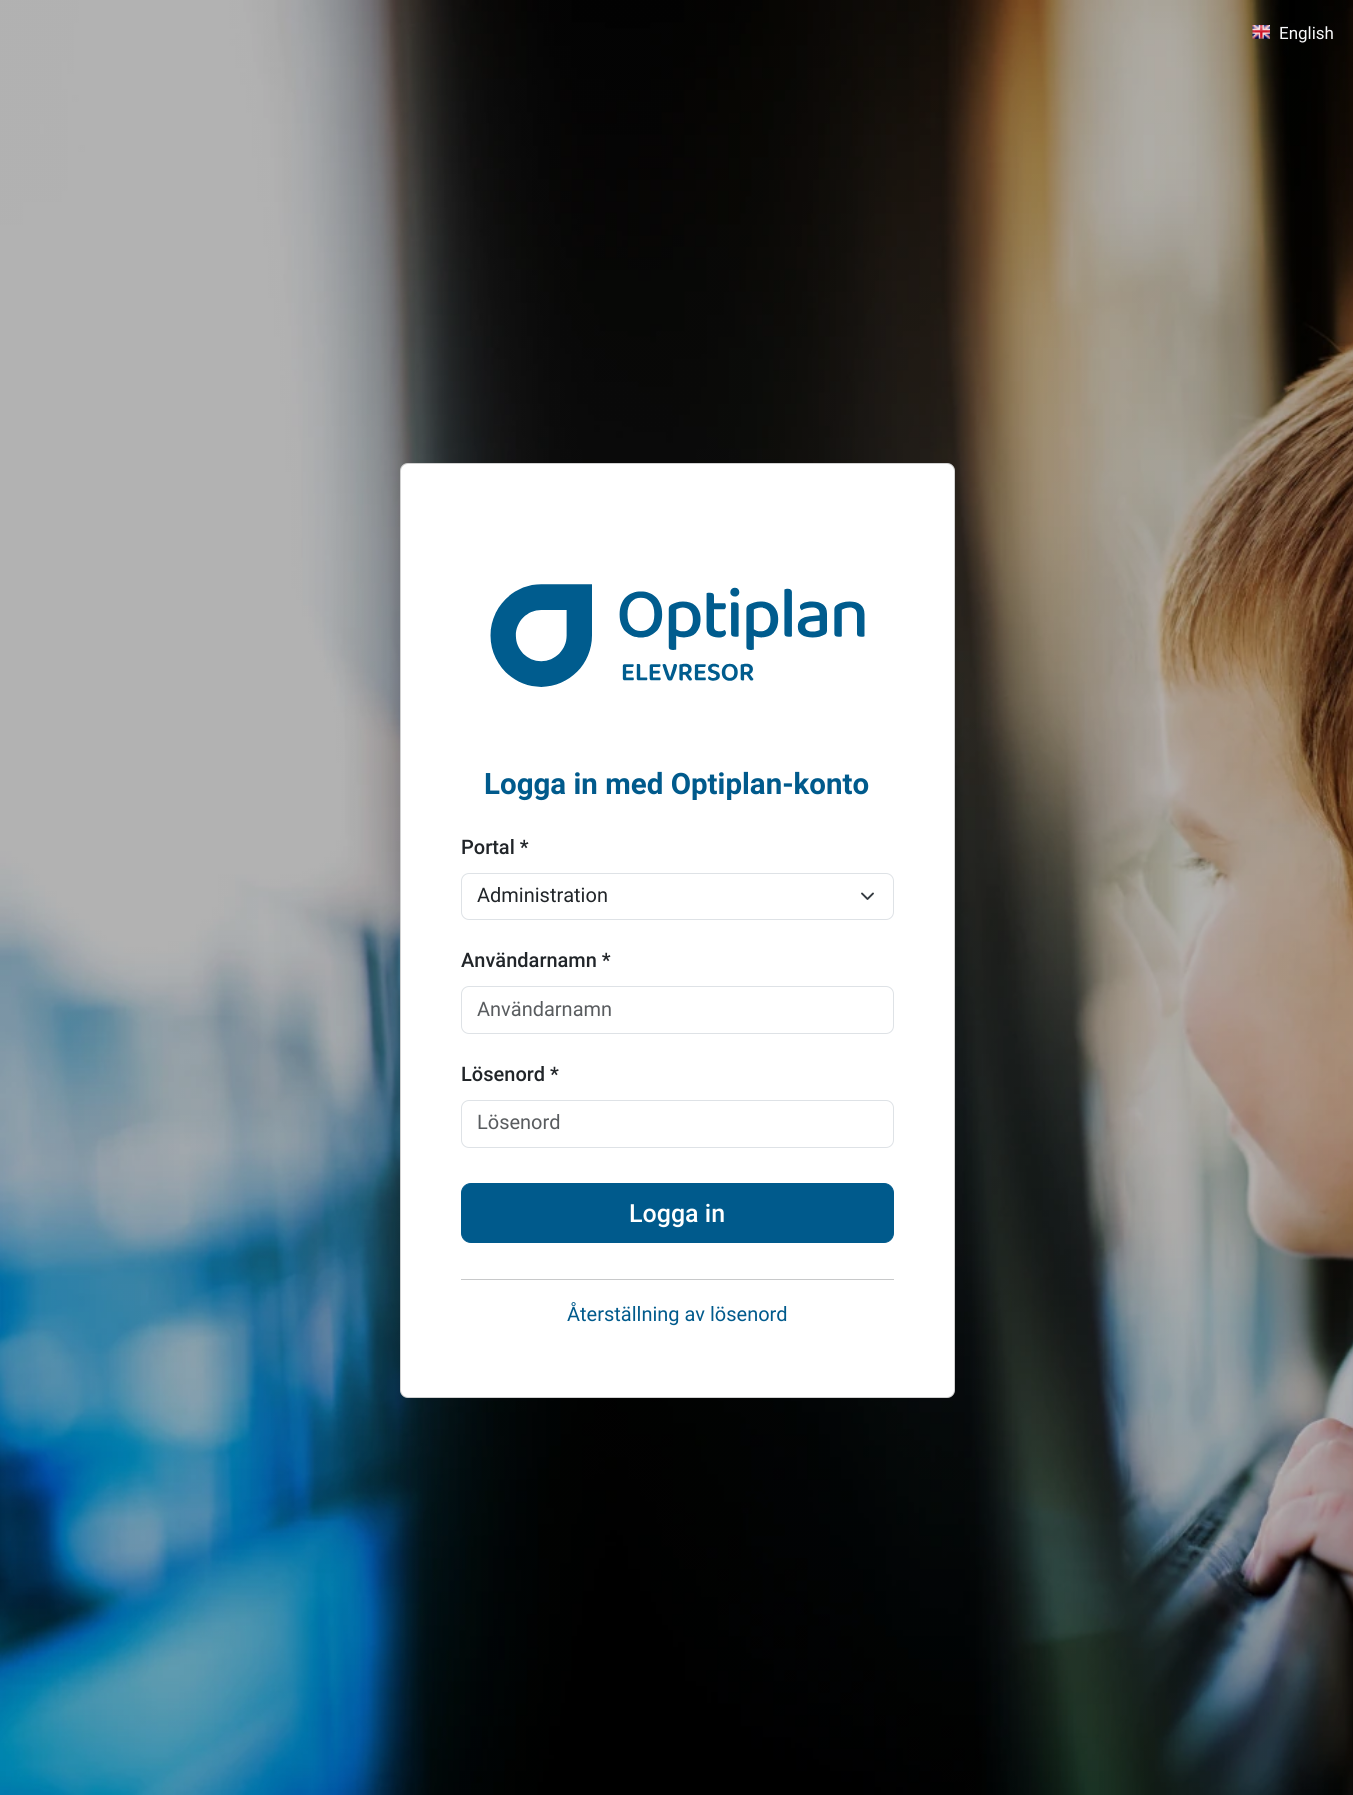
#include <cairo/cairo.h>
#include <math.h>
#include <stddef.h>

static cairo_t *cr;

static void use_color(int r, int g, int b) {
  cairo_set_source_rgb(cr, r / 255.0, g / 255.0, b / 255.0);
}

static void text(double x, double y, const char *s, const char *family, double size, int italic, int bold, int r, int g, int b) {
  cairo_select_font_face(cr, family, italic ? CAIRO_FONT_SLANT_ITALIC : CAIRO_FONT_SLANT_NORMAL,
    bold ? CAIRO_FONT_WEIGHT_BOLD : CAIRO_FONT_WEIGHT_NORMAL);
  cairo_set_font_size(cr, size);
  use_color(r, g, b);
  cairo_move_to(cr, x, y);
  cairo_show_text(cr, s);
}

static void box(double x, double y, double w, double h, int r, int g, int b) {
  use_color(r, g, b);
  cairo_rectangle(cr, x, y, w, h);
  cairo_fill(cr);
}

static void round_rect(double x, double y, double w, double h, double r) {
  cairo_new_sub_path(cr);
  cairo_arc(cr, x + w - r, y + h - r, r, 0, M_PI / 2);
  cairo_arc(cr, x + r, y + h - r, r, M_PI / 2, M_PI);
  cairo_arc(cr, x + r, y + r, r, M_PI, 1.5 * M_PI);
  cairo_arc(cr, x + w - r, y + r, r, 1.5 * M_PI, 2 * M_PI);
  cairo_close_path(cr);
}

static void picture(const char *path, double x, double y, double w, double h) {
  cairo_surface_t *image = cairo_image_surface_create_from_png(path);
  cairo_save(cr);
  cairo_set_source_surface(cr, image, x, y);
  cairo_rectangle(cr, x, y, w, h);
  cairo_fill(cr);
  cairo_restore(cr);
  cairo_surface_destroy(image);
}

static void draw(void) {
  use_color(255, 255, 255);
  cairo_paint(cr);
  picture("img_01.png", 0, 0, 1353, 1795);
  picture("img_02.png", 1252, 25, 18, 14);
  use_color(255, 255, 255);
  round_rect(400, 463, 555, 935, 8);
  cairo_fill(cr);
  round_rect(400.5, 463.5, 554, 934, 7.5);
  cairo_set_source_rgba(cr, 0, 0, 0, 0.18);
  cairo_set_line_width(cr, 1);
  cairo_stroke(cr);
  picture("img_03.png", 490, 584, 375, 103);
  cairo_new_path(cr);
  cairo_move_to(cr, 862, 893.5);
  cairo_line_to(cr, 867.5, 899);
  cairo_line_to(cr, 873, 893.5);
  use_color(52, 58, 64);
  cairo_set_line_width(cr, 1.9);
  cairo_set_line_cap(cr, CAIRO_LINE_CAP_ROUND);
  cairo_set_line_join(cr, CAIRO_LINE_JOIN_ROUND);
  cairo_stroke(cr);
  round_rect(461.5, 873.5, 432, 46, 7.5);
  use_color(222, 226, 230);
  cairo_set_line_width(cr, 1);
  cairo_set_line_cap(cr, CAIRO_LINE_CAP_BUTT);
  cairo_set_line_join(cr, CAIRO_LINE_JOIN_MITER);
  cairo_stroke(cr);
  round_rect(461.5, 986.5, 432, 47, 7.5);
  cairo_stroke(cr);
  round_rect(461.5, 1100.5, 432, 47, 7.5);
  cairo_stroke(cr);
  use_color(0, 90, 140);
  round_rect(461.5, 1183.5, 432, 59, 9.5);
  cairo_fill_preserve(cr);
  cairo_stroke(cr);
  box(461, 1279, 433, 1, 200, 201, 202);
  text(1279, 39, "English", "Roboto", 17, 0, 0, 248, 249, 250);
  text(484, 794, "Logga in med Optiplan-konto", "Roboto", 29.5, 0, 1, 0, 90, 140);
  text(461, 854, "Portal *", "Roboto Medium", 20, 0, 0, 33, 37, 41);
  text(477, 902, "Administration", "Roboto", 20, 0, 0, 33, 37, 41);
  text(461, 967, "Användarnamn *", "Roboto Medium", 20, 0, 0, 33, 37, 41);
  text(477, 1016, "Användarnamn", "Roboto", 20, 0, 0, 89, 92, 95);
  text(461, 1081, "Lösenord *", "Roboto Medium", 20, 0, 0, 33, 37, 41);
  text(477, 1129, "Lösenord", "Roboto", 20, 0, 0, 89, 92, 95);
  text(629, 1222, "Logga in", "Roboto Medium", 25, 0, 0, 255, 255, 255);
  text(567, 1321, "Återställning av lösenord", "Roboto", 20, 0, 0, 0, 90, 140);
}

int main(void) {
  cairo_surface_t *surface = cairo_image_surface_create(CAIRO_FORMAT_RGB24, 1353, 1795);
  cr = cairo_create(surface);
  cairo_font_options_t *options = cairo_font_options_create();
  cairo_font_options_set_hint_metrics(options, CAIRO_HINT_METRICS_OFF);
  cairo_font_options_set_hint_style(options, CAIRO_HINT_STYLE_NONE);
  cairo_set_font_options(cr, options);
  cairo_set_miter_limit(cr, 4);
  draw();
  cairo_surface_write_to_png(surface, "out.png");
  cairo_font_options_destroy(options);
  cairo_destroy(cr);
  cairo_surface_destroy(surface);
  return 0;
}
